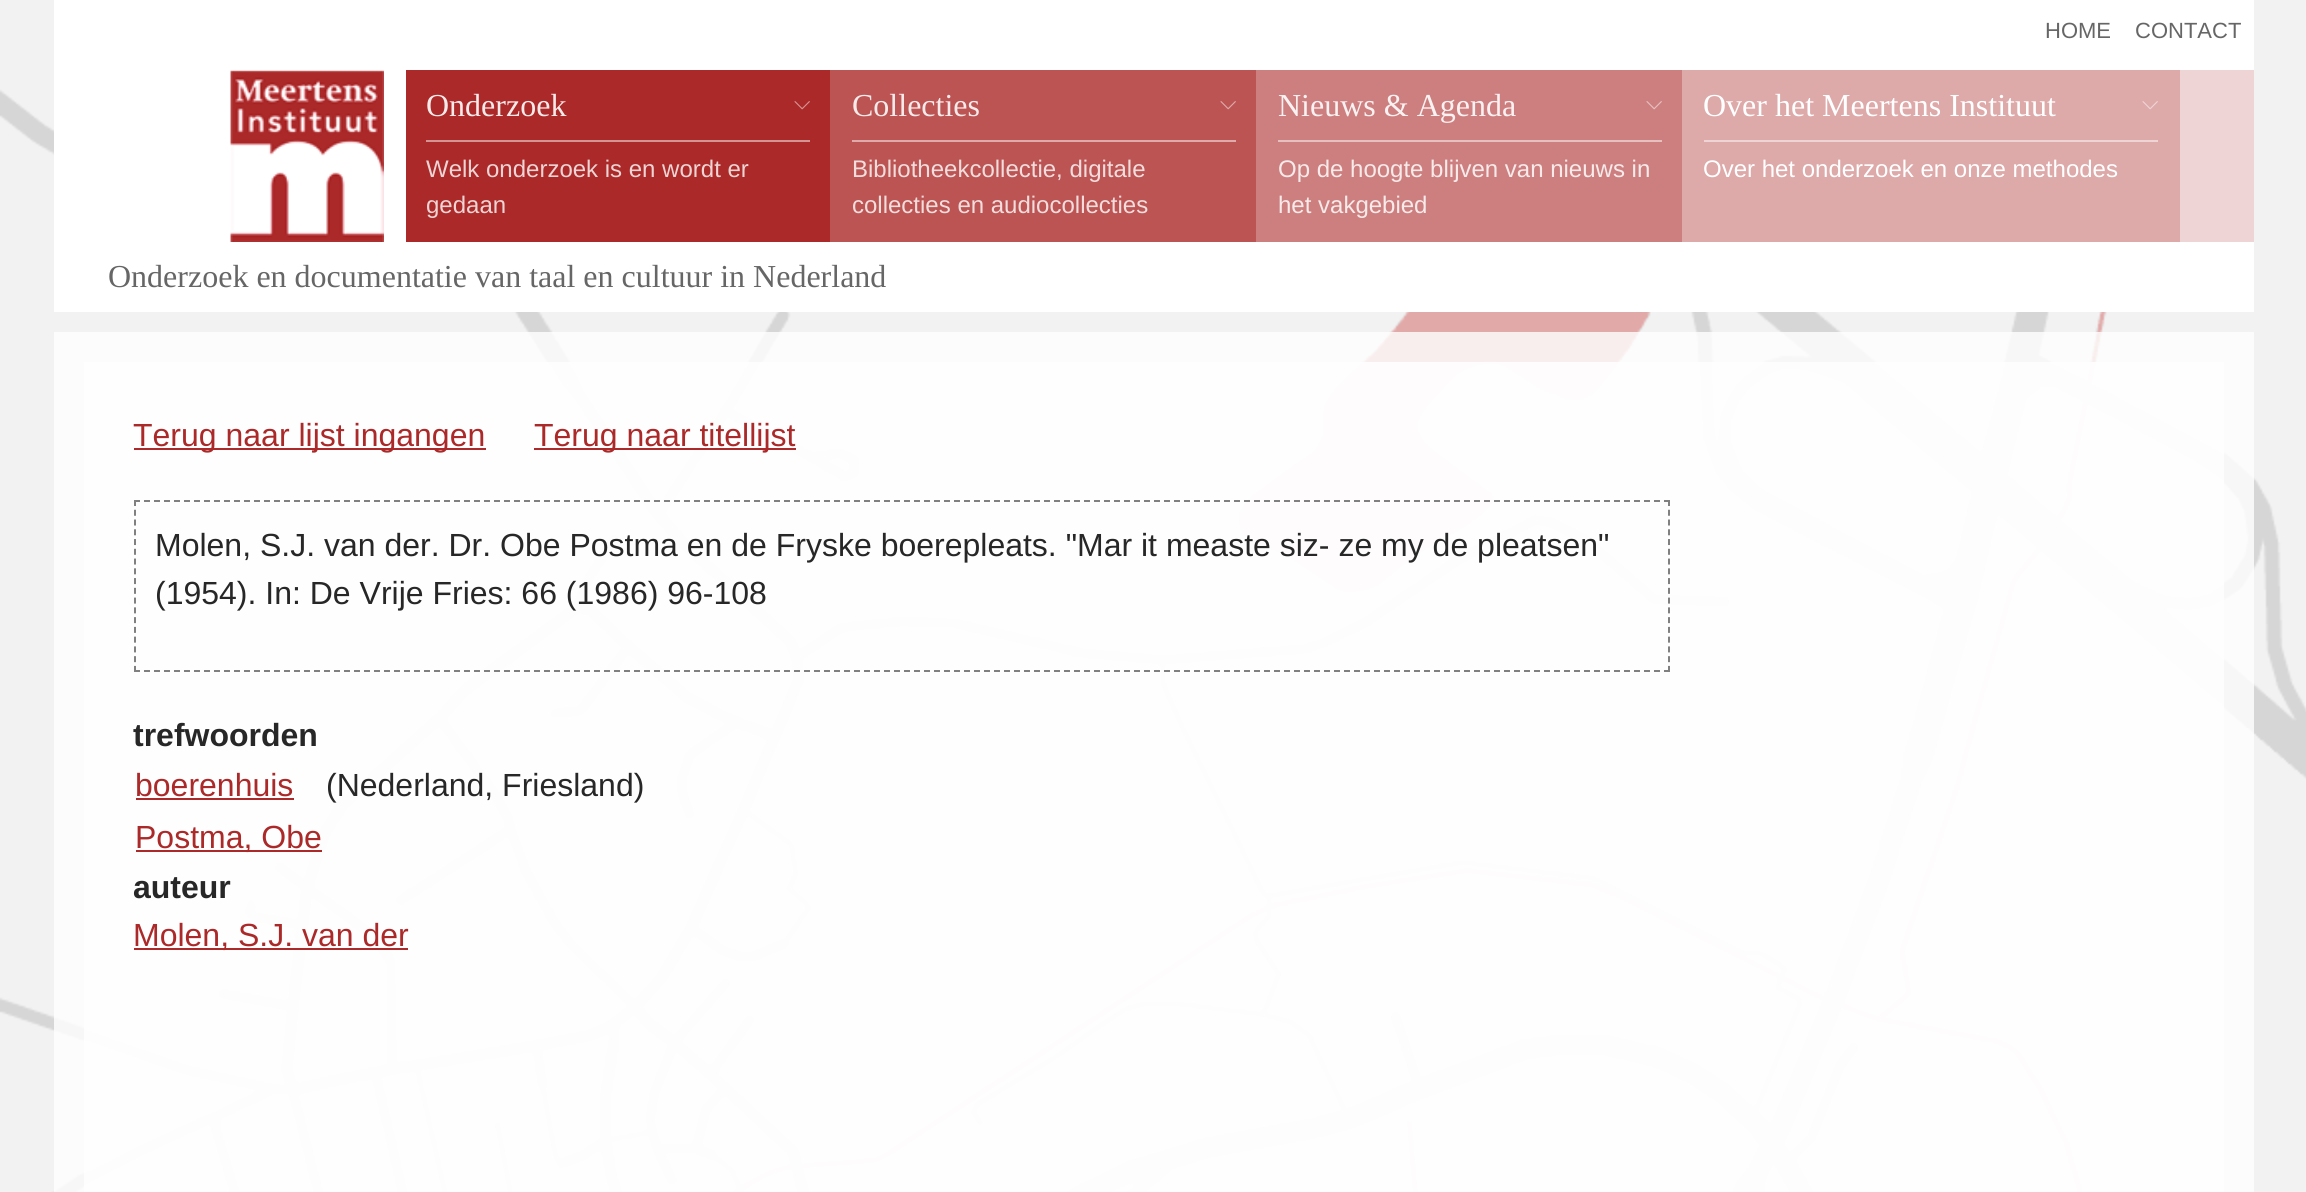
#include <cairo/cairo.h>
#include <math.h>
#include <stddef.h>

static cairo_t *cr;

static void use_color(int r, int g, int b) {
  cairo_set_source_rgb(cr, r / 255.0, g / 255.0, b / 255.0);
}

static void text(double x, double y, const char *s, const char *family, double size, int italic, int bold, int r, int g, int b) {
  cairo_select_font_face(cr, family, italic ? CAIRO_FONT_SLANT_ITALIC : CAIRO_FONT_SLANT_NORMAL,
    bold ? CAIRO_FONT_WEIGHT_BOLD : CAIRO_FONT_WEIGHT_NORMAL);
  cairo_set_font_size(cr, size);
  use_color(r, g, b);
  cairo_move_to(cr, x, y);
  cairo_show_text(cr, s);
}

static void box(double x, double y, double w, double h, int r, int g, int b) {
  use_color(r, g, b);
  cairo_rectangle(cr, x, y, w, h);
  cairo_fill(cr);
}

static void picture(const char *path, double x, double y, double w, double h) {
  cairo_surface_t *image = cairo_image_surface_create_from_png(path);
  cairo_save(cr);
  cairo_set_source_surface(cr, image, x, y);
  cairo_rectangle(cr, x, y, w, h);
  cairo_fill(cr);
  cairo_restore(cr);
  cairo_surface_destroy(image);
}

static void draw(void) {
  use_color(255, 255, 255);
  cairo_paint(cr);
  picture("img_01.png", 0, 0, 2306, 1192);
  box(54, 0, 2200, 312, 255, 255, 255);
  picture("img_02.png", 230, 70, 154, 172);
  box(2180, 70, 74, 172, 238, 212, 212);
  box(406, 70, 424, 172, 171, 41, 41);
  picture("img_03.png", 794, 101, 16, 9);
  box(426, 140, 384, 2, 213, 148, 148);
  box(830, 70, 426, 172, 188, 84, 84);
  picture("img_04.png", 1220, 101, 16, 9);
  box(852, 140, 384, 2, 222, 170, 170);
  box(1256, 70, 426, 172, 205, 127, 127);
  picture("img_05.png", 1646, 101, 16, 9);
  box(1278, 140, 384, 2, 230, 191, 191);
  box(1682, 70, 498, 172, 221, 169, 169);
  picture("img_06.png", 2142, 101, 16, 9);
  box(1704, 140, 454, 2, 238, 212, 212);
  cairo_set_source_rgba(cr, 1, 1, 1, 0.8);
  cairo_rectangle(cr, 54, 332, 2200, 860);
  cairo_fill(cr);
  cairo_rectangle(cr, 84, 362, 2140, 830);
  cairo_fill(cr);
  box(134, 448, 352, 2, 171, 41, 41);
  box(534, 448, 262, 2, 171, 41, 41);
  cairo_new_path(cr);
  cairo_move_to(cr, 134, 501);
  cairo_line_to(cr, 1670, 501);
  use_color(128, 128, 128);
  cairo_set_dash(cr, (double[]){6, 4}, 2, 0);
  cairo_stroke(cr);
  cairo_new_path(cr);
  cairo_move_to(cr, 1669, 500);
  cairo_line_to(cr, 1669, 672);
  cairo_set_dash(cr, (double[]){6, 3.76}, 2, 0);
  cairo_stroke(cr);
  cairo_new_path(cr);
  cairo_move_to(cr, 134, 671);
  cairo_line_to(cr, 1670, 671);
  cairo_set_dash(cr, (double[]){6, 4}, 2, 0);
  cairo_stroke(cr);
  cairo_new_path(cr);
  cairo_move_to(cr, 135, 500);
  cairo_line_to(cr, 135, 672);
  cairo_set_dash(cr, (double[]){6, 3.76}, 2, 0);
  cairo_stroke(cr);
  box(136, 798, 158, 2, 171, 41, 41);
  box(136, 850, 186, 2, 171, 41, 41);
  box(134, 948, 274, 2, 171, 41, 41);
  text(2045, 38, "HOME", "Liberation Sans", 22, 0, 0, 102, 102, 102);
  text(2135, 38, "CONTACT", "Liberation Sans", 22, 0, 0, 102, 102, 102);
  text(426, 116, "Onderzoek", "Liberation Serif", 32, 0, 0, 247, 234, 234);
  text(426, 177, "Welk onderzoek is en wordt er", "Liberation Sans", 24, 0, 0, 238, 212, 212);
  text(426, 213, "gedaan", "Liberation Sans", 24, 0, 0, 238, 212, 212);
  text(852, 116, "Collecties", "Liberation Serif", 32, 0, 0, 247, 234, 234);
  text(852, 177, "Bibliotheekcollectie, digitale", "Liberation Sans", 24, 0, 0, 242, 221, 221);
  text(852, 213, "collecties en audiocollecties", "Liberation Sans", 24, 0, 0, 242, 221, 221);
  text(1278, 116, "Nieuws & Agenda", "Liberation Serif", 32, 0, 0, 250, 242, 242);
  text(1278, 177, "Op de hoogte blijven van nieuws in", "Liberation Sans", 24, 0, 0, 247, 234, 234);
  text(1278, 213, "het vakgebied", "Liberation Sans", 24, 0, 0, 247, 234, 234);
  text(1703, 116, "Over het Meertens Instituut", "Liberation Serif", 32, 0, 0, 255, 255, 255);
  text(1703, 177, "Over het onderzoek en onze methodes", "Liberation Sans", 24, 0, 0, 255, 255, 255);
  text(108, 287, "Onderzoek en documentatie van taal en cultuur in Nederland", "Liberation Serif", 32, 0, 0, 102, 102, 102);
  text(133, 446, "Terug naar lijst ingangen", "Liberation Sans", 32, 0, 0, 171, 41, 41);
  text(534, 446, "Terug naar titellijst", "Liberation Sans", 32, 0, 0, 171, 41, 41);
  text(155, 556, "Molen, S.J. van der. Dr. Obe Postma en de Fryske boerepleats. \"Mar it measte siz- ze my de pleatsen\"", "Liberation Sans", 32, 0, 0, 39, 39, 39);
  text(155, 604, "(1954). In: De Vrije Fries: 66 (1986) 96-108", "Liberation Sans", 32, 0, 0, 39, 39, 39);
  text(133, 746, "trefwoorden", "Liberation Sans", 32, 0, 1, 39, 39, 39);
  text(135, 796, "boerenhuis", "Liberation Sans", 32, 0, 0, 171, 41, 41);
  text(326, 796, "(Nederland, Friesland)", "Liberation Sans", 32, 0, 0, 39, 39, 39);
  text(135, 848, "Postma, Obe", "Liberation Sans", 32, 0, 0, 171, 41, 41);
  text(133, 898, "auteur", "Liberation Sans", 32, 0, 1, 39, 39, 39);
  text(133, 946, "Molen, S.J. van der", "Liberation Sans", 32, 0, 0, 171, 41, 41);
}

int main(void) {
  cairo_surface_t *surface = cairo_image_surface_create(CAIRO_FORMAT_RGB24, 2306, 1192);
  cr = cairo_create(surface);
  cairo_font_options_t *options = cairo_font_options_create();
  cairo_font_options_set_hint_metrics(options, CAIRO_HINT_METRICS_OFF);
  cairo_font_options_set_hint_style(options, CAIRO_HINT_STYLE_NONE);
  cairo_set_font_options(cr, options);
  cairo_set_miter_limit(cr, 4);
  draw();
  cairo_surface_write_to_png(surface, "out.png");
  cairo_font_options_destroy(options);
  cairo_destroy(cr);
  cairo_surface_destroy(surface);
  return 0;
}
